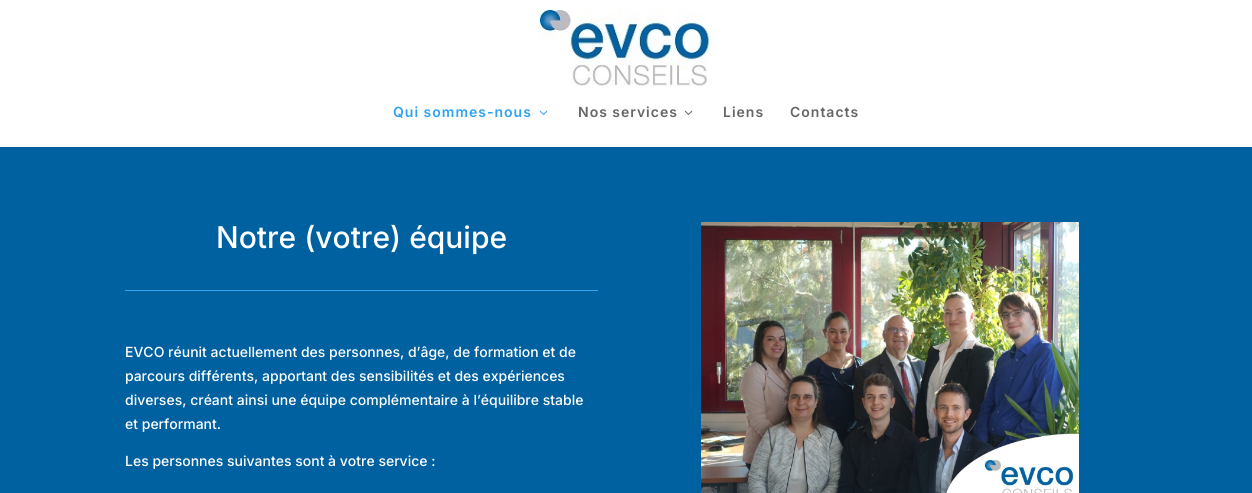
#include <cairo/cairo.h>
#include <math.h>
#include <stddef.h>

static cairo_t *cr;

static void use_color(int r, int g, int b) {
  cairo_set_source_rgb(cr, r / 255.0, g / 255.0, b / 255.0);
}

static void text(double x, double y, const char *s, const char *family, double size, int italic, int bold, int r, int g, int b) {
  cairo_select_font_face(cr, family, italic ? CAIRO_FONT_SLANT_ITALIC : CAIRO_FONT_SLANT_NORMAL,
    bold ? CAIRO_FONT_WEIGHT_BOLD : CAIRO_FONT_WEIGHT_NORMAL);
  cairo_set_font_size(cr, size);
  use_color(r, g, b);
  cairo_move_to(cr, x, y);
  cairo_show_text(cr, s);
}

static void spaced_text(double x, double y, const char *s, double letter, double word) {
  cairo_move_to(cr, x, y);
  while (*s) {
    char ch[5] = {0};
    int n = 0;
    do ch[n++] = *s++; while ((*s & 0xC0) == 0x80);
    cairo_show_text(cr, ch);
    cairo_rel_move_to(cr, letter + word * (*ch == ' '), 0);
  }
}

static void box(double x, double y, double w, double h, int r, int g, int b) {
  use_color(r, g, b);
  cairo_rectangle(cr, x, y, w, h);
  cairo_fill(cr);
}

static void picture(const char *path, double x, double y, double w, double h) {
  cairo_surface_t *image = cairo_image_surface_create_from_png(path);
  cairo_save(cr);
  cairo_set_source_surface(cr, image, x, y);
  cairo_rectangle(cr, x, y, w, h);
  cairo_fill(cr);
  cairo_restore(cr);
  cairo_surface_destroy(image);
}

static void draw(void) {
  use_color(255, 255, 255);
  cairo_paint(cr);
  box(0, 147, 1252, 1, 0, 87, 145);
  picture("img_01.png", 540, 10, 175, 76);
  picture("img_02.png", 539, 110, 9, 5);
  picture("img_03.png", 684, 110, 9, 5);
  box(0, 148, 1252, 345, 0, 97, 161);
  box(125, 290, 473, 1, 46, 163, 242);
  picture("img_04.png", 701, 222, 378, 271);
  cairo_select_font_face(cr, "Inter SemiBold", CAIRO_FONT_SLANT_NORMAL, CAIRO_FONT_WEIGHT_NORMAL);
  cairo_set_font_size(cr, 14);
  spaced_text(393, 117, "Qui sommes-nous", 1, 0);
  use_color(102, 102, 102);
  spaced_text(578, 117, "Nos services", 1, 0);
  spaced_text(723, 117, "Liens", 1, 0);
  spaced_text(790, 117, "Contacts", 1, 0);
  text(216, 248, "Notre (votre) équipe", "Inter Medium", 30, 0, 0, 255, 255, 255);
  text(125, 357, "EVCO réunit actuellement des personnes, d’âge, de formation et de", "Inter Medium", 14, 0, 0, 255, 255, 255);
  text(125, 381, "parcours différents, apportant des sensibilités et des expériences", "Inter Medium", 14, 0, 0, 255, 255, 255);
  text(125, 405, "diverses, créant ainsi une équipe complémentaire à l’équilibre stable", "Inter Medium", 14, 0, 0, 255, 255, 255);
  text(125, 429, "et performant.", "Inter Medium", 14, 0, 0, 255, 255, 255);
  text(125, 466, "Les personnes suivantes sont à votre service :", "Inter Medium", 14, 0, 0, 255, 255, 255);
}

int main(void) {
  cairo_surface_t *surface = cairo_image_surface_create(CAIRO_FORMAT_RGB24, 1252, 493);
  cr = cairo_create(surface);
  cairo_font_options_t *options = cairo_font_options_create();
  cairo_font_options_set_hint_metrics(options, CAIRO_HINT_METRICS_OFF);
  cairo_font_options_set_hint_style(options, CAIRO_HINT_STYLE_NONE);
  cairo_set_font_options(cr, options);
  cairo_set_miter_limit(cr, 4);
  draw();
  cairo_surface_write_to_png(surface, "out.png");
  cairo_font_options_destroy(options);
  cairo_destroy(cr);
  cairo_surface_destroy(surface);
  return 0;
}
